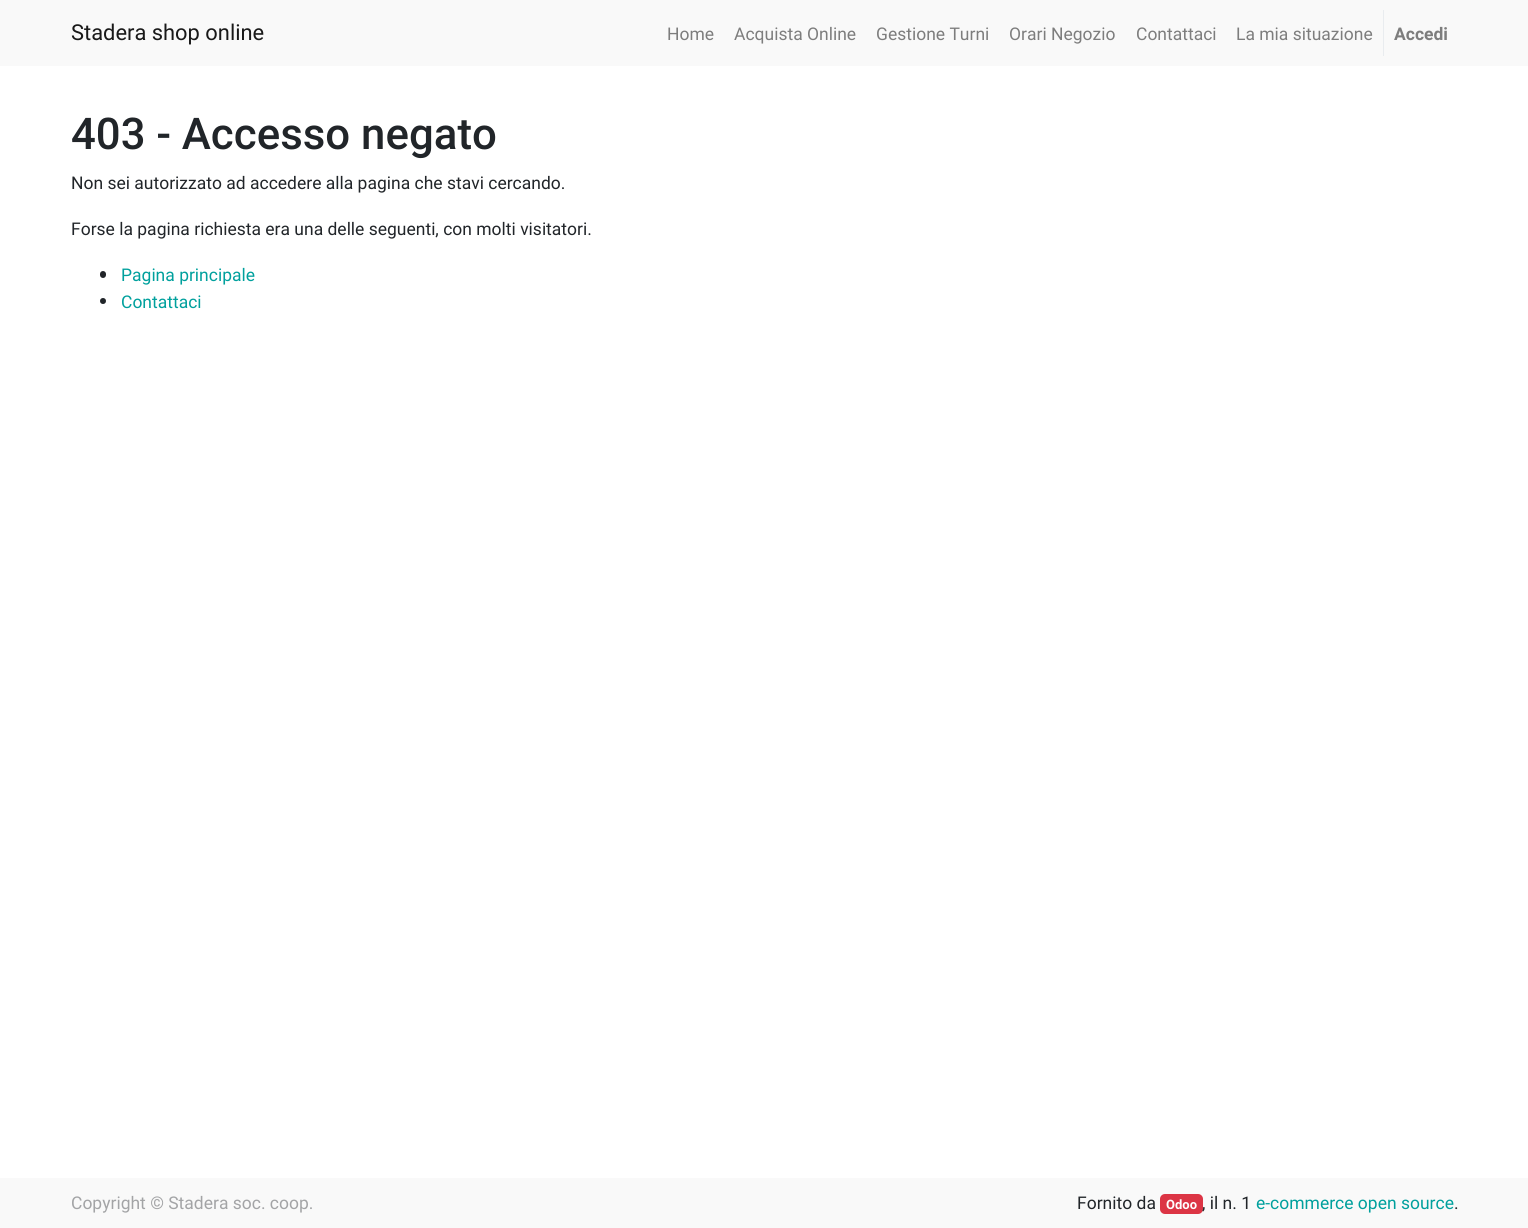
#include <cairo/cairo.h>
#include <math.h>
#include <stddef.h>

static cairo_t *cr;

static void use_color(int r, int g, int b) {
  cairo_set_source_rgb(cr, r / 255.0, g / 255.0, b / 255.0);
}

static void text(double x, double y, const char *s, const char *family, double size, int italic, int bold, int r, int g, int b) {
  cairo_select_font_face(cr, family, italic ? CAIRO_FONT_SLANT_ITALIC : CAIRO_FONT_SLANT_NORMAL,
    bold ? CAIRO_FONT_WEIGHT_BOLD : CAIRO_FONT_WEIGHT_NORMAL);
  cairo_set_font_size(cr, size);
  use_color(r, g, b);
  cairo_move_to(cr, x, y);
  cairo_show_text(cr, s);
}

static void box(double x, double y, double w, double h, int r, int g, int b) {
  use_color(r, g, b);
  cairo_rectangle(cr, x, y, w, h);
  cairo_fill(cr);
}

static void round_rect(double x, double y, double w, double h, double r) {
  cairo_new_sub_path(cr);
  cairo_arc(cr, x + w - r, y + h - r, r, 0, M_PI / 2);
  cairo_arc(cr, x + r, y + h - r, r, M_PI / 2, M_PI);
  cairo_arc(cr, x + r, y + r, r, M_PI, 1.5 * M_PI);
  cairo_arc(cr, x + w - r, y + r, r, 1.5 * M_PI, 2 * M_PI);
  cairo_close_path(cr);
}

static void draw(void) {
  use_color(255, 255, 255);
  cairo_paint(cr);
  box(0, 0, 1528, 66, 249, 249, 249);
  box(1383, 10, 1, 46, 233, 236, 239);
  use_color(33, 37, 41);
  round_rect(100, 271, 6, 7, 3);
  cairo_fill(cr);
  cairo_arc(cr, 103, 301, 3, 0, 2 * M_PI);
  cairo_fill(cr);
  box(0, 1178, 1528, 50, 249, 249, 249);
  use_color(220, 53, 69);
  round_rect(1160, 1194, 43, 20, 5);
  cairo_fill(cr);
  text(71, 40, "Stadera shop online", "Roboto", 21.9, 0, 0, 25, 25, 25);
  text(667, 40, "Home", "Roboto", 17.5, 0, 0, 125, 125, 125);
  text(734, 40, "Acquista Online", "Roboto", 17.5, 0, 0, 125, 125, 125);
  text(876, 40, "Gestione Turni", "Roboto", 17.5, 0, 0, 125, 125, 125);
  text(1009, 40, "Orari Negozio", "Roboto", 17.5, 0, 0, 125, 125, 125);
  text(1136, 40, "Contattaci", "Roboto", 17.5, 0, 0, 125, 125, 125);
  text(1236, 40, "La mia situazione", "Roboto", 17.5, 0, 0, 125, 125, 125);
  text(1394, 40, "Accedi", "Roboto", 17.5, 0, 1, 125, 125, 125);
  text(71, 149, "403 - Accesso negato", "Roboto Medium", 43.75, 0, 0, 33, 37, 41);
  text(71, 189, "Non sei autorizzato ad accedere alla pagina che stavi cercando.", "Roboto", 17.5, 0, 0, 33, 37, 41);
  text(71, 235, "Forse la pagina richiesta era una delle seguenti, con molti visitatori.", "Roboto", 17.5, 0, 0, 33, 37, 41);
  text(121, 281, "Pagina principale", "Roboto", 17.5, 0, 0, 0, 160, 157);
  text(121, 308, "Contattaci", "Roboto", 17.5, 0, 0, 0, 160, 157);
  text(71, 1209, "Copyright © Stadera soc. coop.", "Roboto", 17.5, 0, 0, 163, 164, 166);
  text(1077, 1209, "Fornito da", "Roboto", 17.5, 0, 0, 33, 37, 41);
  text(1166, 1209, "Odoo", "Roboto", 13, 0, 1, 255, 255, 255);
  text(1202, 1209, ", il n. 1", "Roboto", 17.5, 0, 0, 33, 37, 41);
  text(1256, 1209, "e-commerce open source", "Roboto", 17.5, 0, 0, 0, 160, 157);
  text(1454, 1209, ".", "Roboto", 17.5, 0, 0, 33, 37, 41);
}

int main(void) {
  cairo_surface_t *surface = cairo_image_surface_create(CAIRO_FORMAT_RGB24, 1528, 1228);
  cr = cairo_create(surface);
  cairo_font_options_t *options = cairo_font_options_create();
  cairo_font_options_set_hint_metrics(options, CAIRO_HINT_METRICS_OFF);
  cairo_font_options_set_hint_style(options, CAIRO_HINT_STYLE_NONE);
  cairo_set_font_options(cr, options);
  cairo_set_miter_limit(cr, 4);
  draw();
  cairo_surface_write_to_png(surface, "out.png");
  cairo_font_options_destroy(options);
  cairo_destroy(cr);
  cairo_surface_destroy(surface);
  return 0;
}
